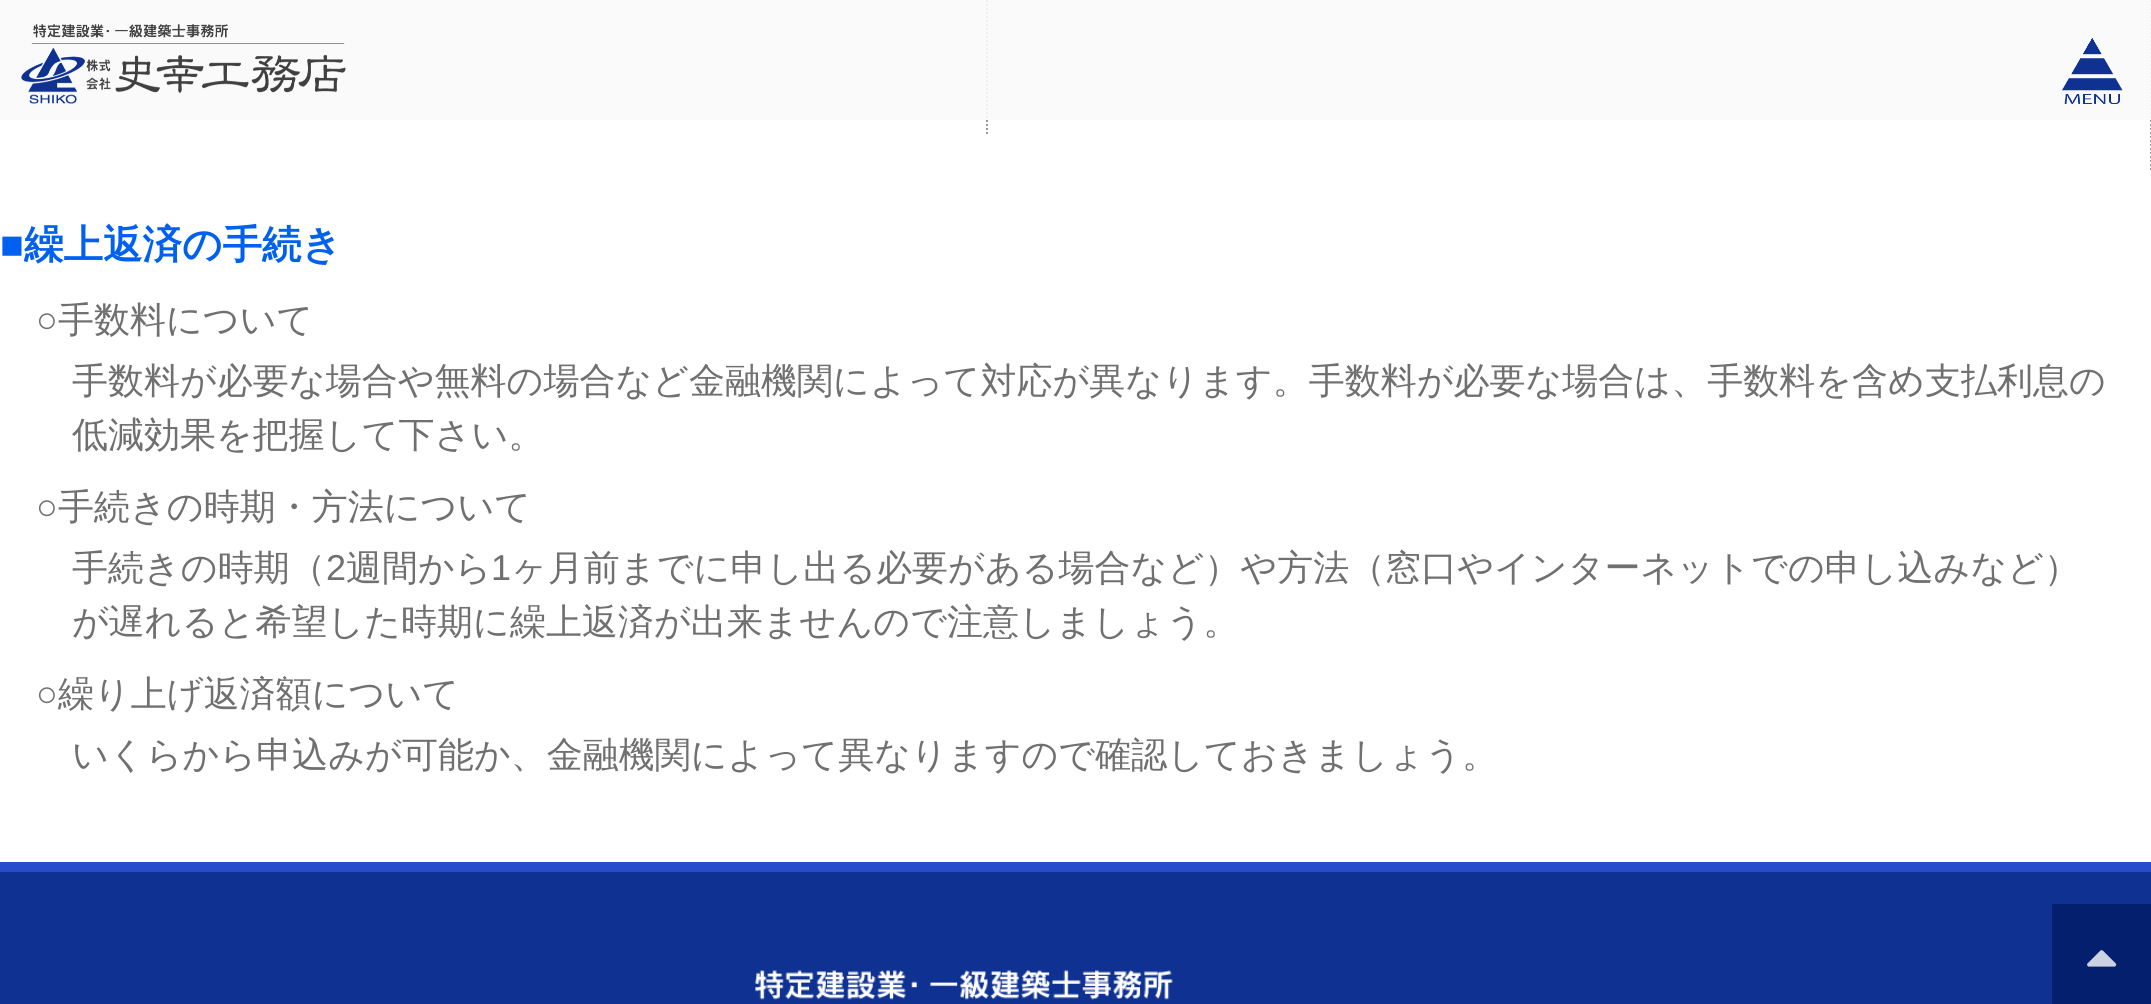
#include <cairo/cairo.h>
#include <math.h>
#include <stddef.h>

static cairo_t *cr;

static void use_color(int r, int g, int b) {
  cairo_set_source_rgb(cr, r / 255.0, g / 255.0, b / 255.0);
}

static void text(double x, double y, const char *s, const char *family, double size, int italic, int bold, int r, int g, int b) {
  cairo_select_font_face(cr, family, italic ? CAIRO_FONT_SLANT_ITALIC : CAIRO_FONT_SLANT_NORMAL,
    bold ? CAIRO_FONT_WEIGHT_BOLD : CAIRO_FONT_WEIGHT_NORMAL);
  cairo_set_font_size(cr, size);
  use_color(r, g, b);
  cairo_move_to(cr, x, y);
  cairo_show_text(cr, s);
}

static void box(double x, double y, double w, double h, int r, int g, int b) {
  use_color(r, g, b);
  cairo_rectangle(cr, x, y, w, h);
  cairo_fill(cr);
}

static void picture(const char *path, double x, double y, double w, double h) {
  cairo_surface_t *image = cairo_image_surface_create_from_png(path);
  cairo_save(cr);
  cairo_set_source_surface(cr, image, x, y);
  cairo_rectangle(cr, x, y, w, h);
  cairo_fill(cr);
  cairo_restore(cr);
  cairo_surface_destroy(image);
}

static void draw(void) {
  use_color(255, 255, 255);
  cairo_paint(cr);
  cairo_new_path(cr);
  cairo_move_to(cr, 987, -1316);
  cairo_line_to(cr, 987, 134);
  use_color(153, 153, 153);
  cairo_set_dash(cr, (double[]){2, 2}, 2, 0);
  cairo_stroke(cr);
  cairo_new_path(cr);
  cairo_move_to(cr, 2151, -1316);
  cairo_line_to(cr, 2151, 172);
  cairo_stroke(cr);
  cairo_set_source_rgba(cr, 0.98, 0.98, 0.98, 0.9);
  cairo_rectangle(cr, 0, 0, 2151, 120);
  cairo_fill(cr);
  picture("img_01.png", 21, 24, 325, 80);
  picture("img_02.png", 2062, 38, 61, 66);
  box(0, 872, 2151, 132, 14, 49, 146);
  box(0, 862, 2151, 10, 38, 76, 204);
  picture("img_03.png", 755, 970, 418, 30);
  box(2052, 904, 99, 100, 3, 31, 110);
  picture("img_04.png", 2087, 950, 30, 17);
  text(0, 258, "■", "Liberation Sans", 39.5, 0, 1, 0, 96, 240);
  text(24, 258, "繰上返済の手続き", "WenQuanYi Zen Hei", 39.5, 0, 1, 0, 96, 240);
  text(36, 332, "○", "Liberation Sans", 36, 0, 0, 112, 112, 112);
  text(58, 332, "手数料について", "WenQuanYi Zen Hei Medium", 36, 0, 0, 112, 112, 112);
  text(72, 393, "手数料が必要な場合や無料の場合など金融機関によって対応が異なります。手数料が必要な場合は、手数料を含め支払利息の", "WenQuanYi Zen Hei Medium", 36, 0, 0, 112, 112, 112);
  text(72, 447, "低減効果を把握して下さい。", "WenQuanYi Zen Hei Medium", 36, 0, 0, 112, 112, 112);
  text(36, 519, "○", "Liberation Sans", 36, 0, 0, 112, 112, 112);
  text(58, 519, "手続きの時期・方法について", "WenQuanYi Zen Hei Medium", 36, 0, 0, 112, 112, 112);
  text(72, 580, "手続きの時期（", "WenQuanYi Zen Hei Medium", 36, 0, 0, 112, 112, 112);
  text(326, 580, "2", "Liberation Sans", 36, 0, 0, 112, 112, 112);
  text(346, 580, "週間から", "WenQuanYi Zen Hei Medium", 36, 0, 0, 112, 112, 112);
  text(491, 580, "1", "Liberation Sans", 36, 0, 0, 112, 112, 112);
  text(511, 580, "ヶ月前までに申し出る必要がある場合など）や方法（窓口やインターネットでの申し込みなど）", "WenQuanYi Zen Hei Medium", 36, 0, 0, 112, 112, 112);
  text(72, 634, "が遅れると希望した時期に繰上返済が出来ませんので注意しましょう。", "WenQuanYi Zen Hei Medium", 36, 0, 0, 112, 112, 112);
  text(36, 706, "○", "Liberation Sans", 36, 0, 0, 112, 112, 112);
  text(58, 706, "繰り上げ返済額について", "WenQuanYi Zen Hei Medium", 36, 0, 0, 112, 112, 112);
  text(72, 767, "いくらから申込みが可能か、金融機関によって異なりますので確認しておきましょう。", "WenQuanYi Zen Hei Medium", 36, 0, 0, 112, 112, 112);
}

int main(void) {
  cairo_surface_t *surface = cairo_image_surface_create(CAIRO_FORMAT_RGB24, 2151, 1004);
  cr = cairo_create(surface);
  cairo_font_options_t *options = cairo_font_options_create();
  cairo_font_options_set_hint_metrics(options, CAIRO_HINT_METRICS_OFF);
  cairo_font_options_set_hint_style(options, CAIRO_HINT_STYLE_NONE);
  cairo_set_font_options(cr, options);
  cairo_set_miter_limit(cr, 4);
  draw();
  cairo_surface_write_to_png(surface, "out.png");
  cairo_font_options_destroy(options);
  cairo_destroy(cr);
  cairo_surface_destroy(surface);
  return 0;
}
